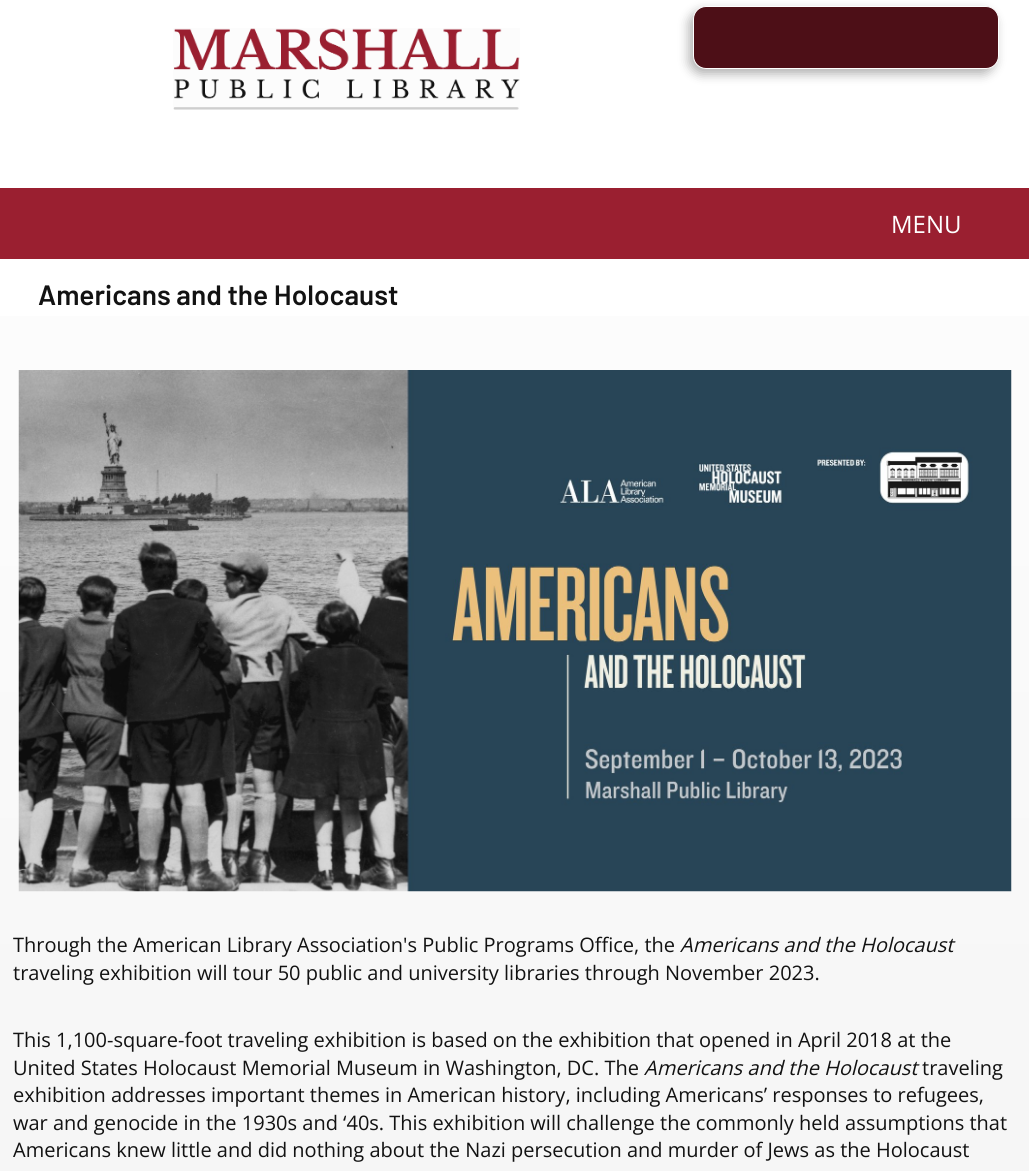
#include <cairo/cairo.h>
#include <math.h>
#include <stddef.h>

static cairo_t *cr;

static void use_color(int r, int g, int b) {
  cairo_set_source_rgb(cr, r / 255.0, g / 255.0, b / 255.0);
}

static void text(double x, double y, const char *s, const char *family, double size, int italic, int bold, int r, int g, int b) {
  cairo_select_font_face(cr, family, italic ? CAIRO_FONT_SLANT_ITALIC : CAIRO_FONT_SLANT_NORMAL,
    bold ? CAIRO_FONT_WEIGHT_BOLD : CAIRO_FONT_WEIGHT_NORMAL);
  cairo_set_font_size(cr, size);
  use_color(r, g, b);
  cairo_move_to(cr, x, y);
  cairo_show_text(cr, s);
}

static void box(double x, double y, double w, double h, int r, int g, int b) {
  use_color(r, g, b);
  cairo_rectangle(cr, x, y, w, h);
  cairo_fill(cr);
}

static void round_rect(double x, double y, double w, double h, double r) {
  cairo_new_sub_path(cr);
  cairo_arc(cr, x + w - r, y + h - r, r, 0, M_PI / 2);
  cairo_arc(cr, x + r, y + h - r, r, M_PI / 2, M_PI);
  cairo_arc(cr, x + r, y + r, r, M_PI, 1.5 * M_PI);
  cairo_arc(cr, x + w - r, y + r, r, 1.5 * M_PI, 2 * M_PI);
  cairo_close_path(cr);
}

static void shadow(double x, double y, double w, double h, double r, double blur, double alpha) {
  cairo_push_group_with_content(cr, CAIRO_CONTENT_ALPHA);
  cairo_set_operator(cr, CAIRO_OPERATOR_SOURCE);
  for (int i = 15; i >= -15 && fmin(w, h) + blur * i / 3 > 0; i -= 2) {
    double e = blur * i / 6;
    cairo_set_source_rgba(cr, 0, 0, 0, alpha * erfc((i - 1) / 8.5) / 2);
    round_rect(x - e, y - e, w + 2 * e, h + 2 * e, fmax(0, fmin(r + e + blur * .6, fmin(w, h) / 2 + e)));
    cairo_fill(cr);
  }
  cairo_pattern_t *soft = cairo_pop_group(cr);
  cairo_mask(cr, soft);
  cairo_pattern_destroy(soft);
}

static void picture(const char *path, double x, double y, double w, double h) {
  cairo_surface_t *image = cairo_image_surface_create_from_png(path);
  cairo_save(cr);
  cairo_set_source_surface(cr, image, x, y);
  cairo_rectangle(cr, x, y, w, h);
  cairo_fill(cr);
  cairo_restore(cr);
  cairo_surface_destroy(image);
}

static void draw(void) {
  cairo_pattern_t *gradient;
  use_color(255, 255, 255);
  cairo_paint(cr);
  gradient = cairo_pattern_create_linear(515, 0, 515, 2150);
  cairo_pattern_add_color_stop_rgba(gradient, 0, 1, 1, 1, 1);
  cairo_pattern_add_color_stop_rgba(gradient, 1, 0.933, 0.933, 0.933, 1);
  cairo_set_source(cr, gradient);
  cairo_pattern_destroy(gradient);
  cairo_rectangle(cr, 0, 316, 1029, 855);
  cairo_fill(cr);
  picture("img_01.png", 173, 28, 347, 82);
  use_color(0, 0, 0);
  shadow(689, 11, 306, 63, 13, 5.5, 0.31);
  use_color(77, 15, 23);
  round_rect(693.5, 6.5, 305, 62, 12.5);
  cairo_fill_preserve(cr);
  use_color(255, 255, 255);
  cairo_set_line_width(cr, 1);
  cairo_stroke(cr);
  box(0, 188, 1029, 71, 154, 31, 48);
  picture("img_02.png", 18, 370, 994, 522);
  text(891, 233, "MENU", "Open Sans", 24, 0, 0, 255, 255, 255);
  text(38, 305, "Americans and the Holocaust", "Barlow SemiBold", 28, 0, 0, 18, 18, 18);
  text(13, 952, "Through the American Library Association's Public Programs Office, the", "Open Sans", 20, 0, 0, 18, 18, 18);
  text(680, 952, "Americans and the Holocaust", "Open Sans", 20, 1, 0, 18, 18, 18);
  text(13, 980, "traveling exhibition will tour 50 public and university libraries through November 2023.", "Open Sans", 20, 0, 0, 18, 18, 18);
  text(13, 1047, "This 1,100-square-foot traveling exhibition is based on the exhibition that opened in April 2018 at the", "Open Sans", 20, 0, 0, 18, 18, 18);
  text(13, 1075, "United States Holocaust Memorial Museum in Washington, DC. The", "Open Sans", 20, 0, 0, 18, 18, 18);
  text(644, 1075, "Americans and the Holocaust", "Open Sans", 20, 1, 0, 18, 18, 18);
  text(922, 1075, "traveling", "Open Sans", 20, 0, 0, 18, 18, 18);
  text(13, 1102, "exhibition addresses important themes in American history, including Americans’ responses to refugees,", "Open Sans", 20, 0, 0, 18, 18, 18);
  text(13, 1130, "war and genocide in the 1930s and ‘40s. This exhibition will challenge the commonly held assumptions that", "Open Sans", 20, 0, 0, 18, 18, 18);
  text(13, 1157, "Americans knew little and did nothing about the Nazi persecution and murder of Jews as the Holocaust", "Open Sans", 20, 0, 0, 18, 18, 18);
}

int main(void) {
  cairo_surface_t *surface = cairo_image_surface_create(CAIRO_FORMAT_RGB24, 1029, 1171);
  cr = cairo_create(surface);
  cairo_font_options_t *options = cairo_font_options_create();
  cairo_font_options_set_hint_metrics(options, CAIRO_HINT_METRICS_OFF);
  cairo_font_options_set_hint_style(options, CAIRO_HINT_STYLE_NONE);
  cairo_set_font_options(cr, options);
  cairo_set_miter_limit(cr, 4);
  draw();
  cairo_surface_write_to_png(surface, "out.png");
  cairo_font_options_destroy(options);
  cairo_destroy(cr);
  cairo_surface_destroy(surface);
  return 0;
}
